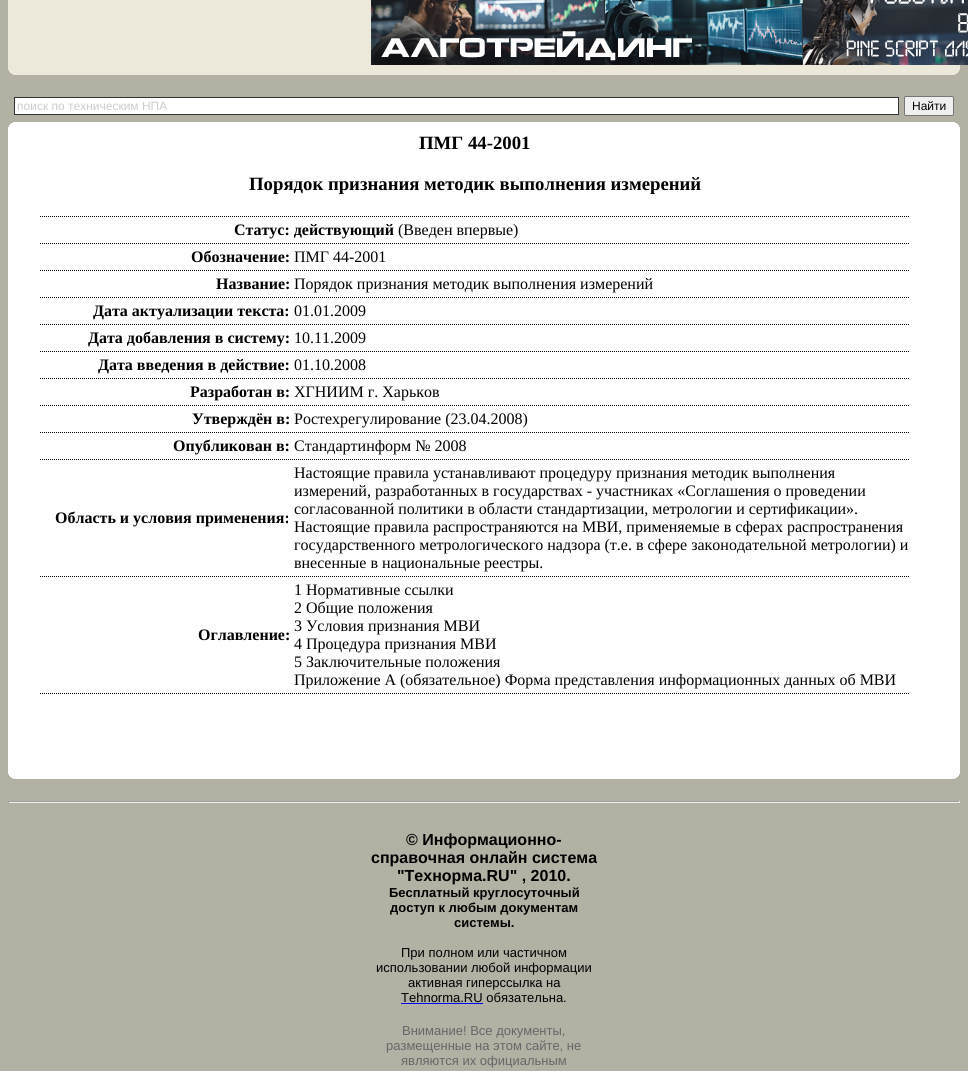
#include <cairo/cairo.h>
#include <math.h>
#include <stddef.h>

static cairo_t *cr;

static void use_color(int r, int g, int b) {
  cairo_set_source_rgb(cr, r / 255.0, g / 255.0, b / 255.0);
}

static void text(double x, double y, const char *s, const char *family, double size, int italic, int bold, int r, int g, int b) {
  cairo_select_font_face(cr, family, italic ? CAIRO_FONT_SLANT_ITALIC : CAIRO_FONT_SLANT_NORMAL,
    bold ? CAIRO_FONT_WEIGHT_BOLD : CAIRO_FONT_WEIGHT_NORMAL);
  cairo_set_font_size(cr, size);
  use_color(r, g, b);
  cairo_move_to(cr, x, y);
  cairo_show_text(cr, s);
}

static void box(double x, double y, double w, double h, int r, int g, int b) {
  use_color(r, g, b);
  cairo_rectangle(cr, x, y, w, h);
  cairo_fill(cr);
}

static void round_rect(double x, double y, double w, double h, double r) {
  cairo_new_sub_path(cr);
  cairo_arc(cr, x + w - r, y + h - r, r, 0, M_PI / 2);
  cairo_arc(cr, x + r, y + h - r, r, M_PI / 2, M_PI);
  cairo_arc(cr, x + r, y + r, r, M_PI, 1.5 * M_PI);
  cairo_arc(cr, x + w - r, y + r, r, 1.5 * M_PI, 2 * M_PI);
  cairo_close_path(cr);
}

static void picture(const char *path, double x, double y, double w, double h) {
  cairo_surface_t *image = cairo_image_surface_create_from_png(path);
  cairo_save(cr);
  cairo_set_source_surface(cr, image, x, y);
  cairo_rectangle(cr, x, y, w, h);
  cairo_fill(cr);
  cairo_restore(cr);
  cairo_surface_destroy(image);
}

static void draw(void) {
  use_color(179, 176, 164);
  cairo_paint(cr);
  box(8, 0, 952, 70, 236, 233, 218);
  picture("img_01.png", 371, 0, 597, 65);
  box(9, 70, 950, 2, 236, 233, 218);
  box(10, 72, 948, 1, 236, 233, 218);
  box(11, 73, 946, 1, 236, 233, 218);
  box(13, 74, 942, 1, 236, 233, 218);
  use_color(255, 255, 255);
  cairo_rectangle(cr, 14.5, 97.5, 884, 17);
  cairo_fill_preserve(cr);
  use_color(51, 51, 51);
  cairo_set_line_width(cr, 1);
  cairo_stroke(cr);
  use_color(239, 239, 239);
  round_rect(904.5, 96.5, 49, 19, 1.5);
  cairo_fill_preserve(cr);
  use_color(118, 118, 118);
  cairo_stroke(cr);
  box(13, 122, 942, 1, 255, 255, 255);
  box(11, 123, 946, 1, 255, 255, 255);
  box(10, 124, 948, 1, 255, 255, 255);
  box(9, 125, 950, 2, 255, 255, 255);
  box(8, 127, 952, 647, 255, 255, 255);
  cairo_new_path(cr);
  cairo_move_to(cr, 40, 216.5);
  cairo_line_to(cr, 909, 216.5);
  use_color(0, 0, 0);
  cairo_set_dash(cr, (double[]){1, 1}, 2, 0);
  cairo_stroke(cr);
  cairo_new_path(cr);
  cairo_move_to(cr, 40, 243.5);
  cairo_line_to(cr, 909, 243.5);
  cairo_stroke(cr);
  cairo_new_path(cr);
  cairo_move_to(cr, 40, 270.5);
  cairo_line_to(cr, 909, 270.5);
  cairo_stroke(cr);
  cairo_new_path(cr);
  cairo_move_to(cr, 40, 297.5);
  cairo_line_to(cr, 909, 297.5);
  cairo_stroke(cr);
  cairo_new_path(cr);
  cairo_move_to(cr, 40, 324.5);
  cairo_line_to(cr, 909, 324.5);
  cairo_stroke(cr);
  cairo_new_path(cr);
  cairo_move_to(cr, 40, 351.5);
  cairo_line_to(cr, 909, 351.5);
  cairo_stroke(cr);
  cairo_new_path(cr);
  cairo_move_to(cr, 40, 378.5);
  cairo_line_to(cr, 909, 378.5);
  cairo_stroke(cr);
  cairo_new_path(cr);
  cairo_move_to(cr, 40, 405.5);
  cairo_line_to(cr, 909, 405.5);
  cairo_stroke(cr);
  cairo_new_path(cr);
  cairo_move_to(cr, 40, 432.5);
  cairo_line_to(cr, 909, 432.5);
  cairo_stroke(cr);
  cairo_new_path(cr);
  cairo_move_to(cr, 40, 459.5);
  cairo_line_to(cr, 909, 459.5);
  cairo_stroke(cr);
  cairo_new_path(cr);
  cairo_move_to(cr, 40, 576.5);
  cairo_line_to(cr, 909, 576.5);
  cairo_stroke(cr);
  cairo_new_path(cr);
  cairo_move_to(cr, 40, 693.5);
  cairo_line_to(cr, 909, 693.5);
  cairo_stroke(cr);
  box(9, 774, 950, 2, 255, 255, 255);
  box(10, 776, 948, 1, 255, 255, 255);
  box(11, 777, 946, 1, 255, 255, 255);
  box(13, 778, 942, 1, 255, 255, 255);
  box(8, 801, 952, 1, 159, 159, 159);
  box(959, 801, 1, 2, 238, 238, 238);
  box(8, 802, 952, 1, 238, 238, 238);
  box(8, 801, 1, 2, 159, 159, 159);
  box(401, 1003, 82, 1, 0, 0, 238);
  text(17, 110, "поиск по техническим НПА", "Liberation Sans", 12, 0, 0, 204, 204, 204);
  text(912, 110, "Найти", "Liberation Sans", 12, 0, 0, 0, 0, 0);
  text(419, 149, "ПМГ 44-2001", "Liberation Serif", 18.75, 0, 1, 0, 0, 0);
  text(249, 190, "Порядок признания методик выполнения измерений", "Liberation Serif", 18.75, 0, 1, 0, 0, 0);
  text(234, 235, "Статус: действующий", "Liberation Serif", 16, 0, 1, 0, 0, 0);
  text(398, 235, "(Введен впервые)", "Liberation Serif", 16, 0, 0, 0, 0, 0);
  text(191, 262, "Обозначение:", "Liberation Serif", 16, 0, 1, 0, 0, 0);
  text(294, 262, "ПМГ 44-2001", "Liberation Serif", 16, 0, 0, 0, 0, 0);
  text(216, 289, "Название:", "Liberation Serif", 16, 0, 1, 0, 0, 0);
  text(294, 289, "Порядок признания методик выполнения измерений", "Liberation Serif", 16, 0, 0, 0, 0, 0);
  text(93, 316, "Дата актуализации текста:", "Liberation Serif", 16, 0, 1, 0, 0, 0);
  text(294, 316, "01.01.2009", "Liberation Serif", 16, 0, 0, 0, 0, 0);
  text(88, 343, "Дата добавления в систему:", "Liberation Serif", 16, 0, 1, 0, 0, 0);
  text(294, 343, "10.11.2009", "Liberation Serif", 16, 0, 0, 0, 0, 0);
  text(98, 370, "Дата введения в действие:", "Liberation Serif", 16, 0, 1, 0, 0, 0);
  text(294, 370, "01.10.2008", "Liberation Serif", 16, 0, 0, 0, 0, 0);
  text(190, 397, "Разработан в:", "Liberation Serif", 16, 0, 1, 0, 0, 0);
  text(294, 397, "ХГНИИМ г. Харьков", "Liberation Serif", 16, 0, 0, 0, 0, 0);
  text(192, 424, "Утверждён в:", "Liberation Serif", 16, 0, 1, 0, 0, 0);
  text(294, 424, "Ростехрегулирование (23.04.2008)", "Liberation Serif", 16, 0, 0, 0, 0, 0);
  text(173, 451, "Опубликован в:", "Liberation Serif", 16, 0, 1, 0, 0, 0);
  text(294, 451, "Стандартинформ № 2008", "Liberation Serif", 16, 0, 0, 0, 0, 0);
  text(55, 523, "Область и условия применения:", "Liberation Serif", 16, 0, 1, 0, 0, 0);
  text(294, 478, "Настоящие правила устанавливают процедуру признания методик выполнения", "Liberation Serif", 16, 0, 0, 0, 0, 0);
  text(294, 496, "измерений, разработанных в государствах - участниках «Соглашения о проведении", "Liberation Serif", 16, 0, 0, 0, 0, 0);
  text(294, 514, "согласованной политики в области стандартизации, метрологии и сертификации».", "Liberation Serif", 16, 0, 0, 0, 0, 0);
  text(294, 532, "Настоящие правила распространяются на МВИ, применяемые в сферах распространения", "Liberation Serif", 16, 0, 0, 0, 0, 0);
  text(294, 550, "государственного метрологического надзора (т.е. в сфере законодательной метрологии) и", "Liberation Serif", 16, 0, 0, 0, 0, 0);
  text(294, 568, "внесенные в национальные реестры.", "Liberation Serif", 16, 0, 0, 0, 0, 0);
  text(198, 640, "Оглавление:", "Liberation Serif", 16, 0, 1, 0, 0, 0);
  text(294, 595, "1 Нормативные ссылки", "Liberation Serif", 16, 0, 0, 0, 0, 0);
  text(294, 613, "2 Общие положения", "Liberation Serif", 16, 0, 0, 0, 0, 0);
  text(294, 631, "3 Условия признания МВИ", "Liberation Serif", 16, 0, 0, 0, 0, 0);
  text(294, 649, "4 Процедура признания МВИ", "Liberation Serif", 16, 0, 0, 0, 0, 0);
  text(294, 667, "5 Заключительные положения", "Liberation Serif", 16, 0, 0, 0, 0, 0);
  text(294, 685, "Приложение А (обязательное) Форма представления информационных данных об МВИ", "Liberation Serif", 16, 0, 0, 0, 0, 0);
  text(406, 845, "© Информационно-", "Liberation Sans", 16, 0, 1, 0, 0, 0);
  text(371, 863, "справочная онлайн система", "Liberation Sans", 16, 0, 1, 0, 0, 0);
  text(397, 881, "\"Технорма.RU\" , 2010.", "Liberation Sans", 16, 0, 1, 0, 0, 0);
  text(389, 897, "Бесплатный круглосуточный", "Liberation Sans", 13, 0, 1, 0, 0, 0);
  text(390, 912, "доступ к любым документам", "Liberation Sans", 13, 0, 1, 0, 0, 0);
  text(454, 927, "системы.", "Liberation Sans", 13, 0, 1, 0, 0, 0);
  text(401, 957, "При полном или частичном", "Liberation Sans", 13, 0, 0, 0, 0, 0);
  text(376, 972, "использовании любой информации", "Liberation Sans", 13, 0, 0, 0, 0, 0);
  text(408, 987, "активная гиперссылка на", "Liberation Sans", 13, 0, 0, 0, 0, 0);
  text(401, 1002, "Tehnorma.RU обязательна.", "Liberation Sans", 13, 0, 0, 0, 0, 0);
  text(402, 1035, "Внимание! Все документы,", "Liberation Sans", 13, 0, 0, 102, 102, 102);
  text(386, 1050, "размещенные на этом сайте, не", "Liberation Sans", 13, 0, 0, 102, 102, 102);
  text(401, 1065, "являются их официальным", "Liberation Sans", 13, 0, 0, 102, 102, 102);
}

int main(void) {
  cairo_surface_t *surface = cairo_image_surface_create(CAIRO_FORMAT_RGB24, 968, 1071);
  cr = cairo_create(surface);
  cairo_font_options_t *options = cairo_font_options_create();
  cairo_font_options_set_hint_metrics(options, CAIRO_HINT_METRICS_OFF);
  cairo_font_options_set_hint_style(options, CAIRO_HINT_STYLE_NONE);
  cairo_set_font_options(cr, options);
  cairo_set_miter_limit(cr, 4);
  draw();
  cairo_surface_write_to_png(surface, "out.png");
  cairo_font_options_destroy(options);
  cairo_destroy(cr);
  cairo_surface_destroy(surface);
  return 0;
}
